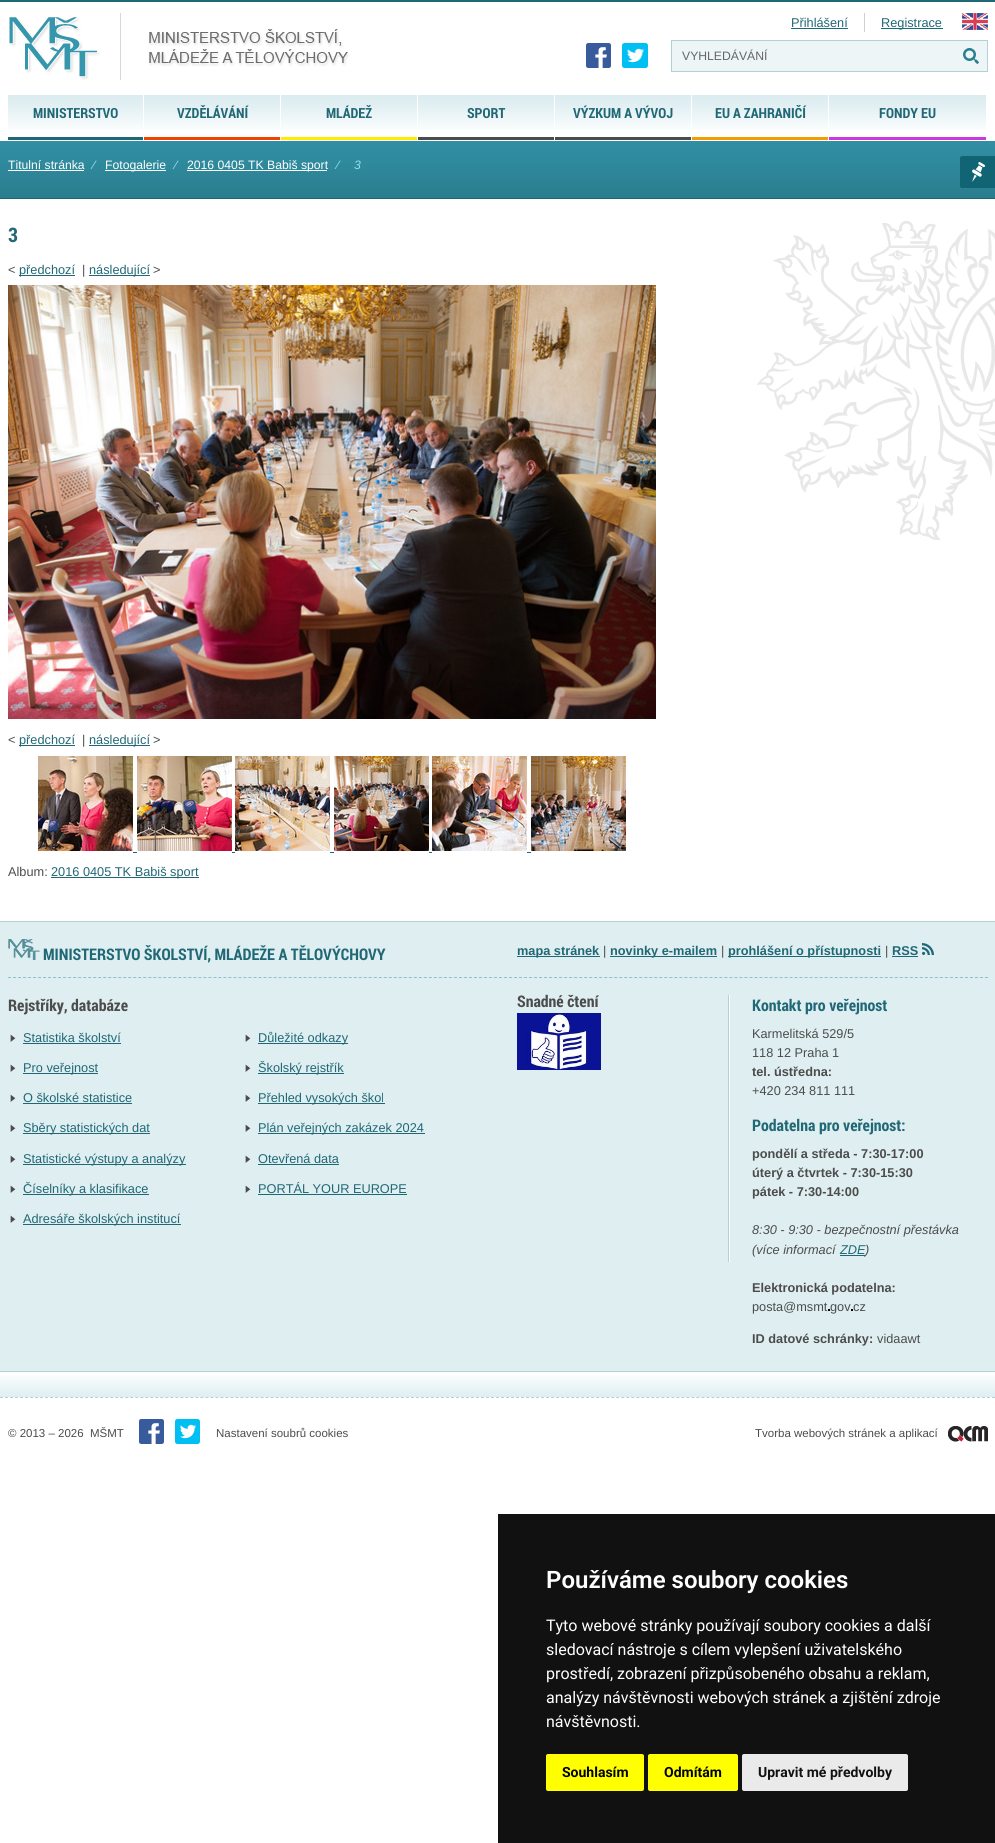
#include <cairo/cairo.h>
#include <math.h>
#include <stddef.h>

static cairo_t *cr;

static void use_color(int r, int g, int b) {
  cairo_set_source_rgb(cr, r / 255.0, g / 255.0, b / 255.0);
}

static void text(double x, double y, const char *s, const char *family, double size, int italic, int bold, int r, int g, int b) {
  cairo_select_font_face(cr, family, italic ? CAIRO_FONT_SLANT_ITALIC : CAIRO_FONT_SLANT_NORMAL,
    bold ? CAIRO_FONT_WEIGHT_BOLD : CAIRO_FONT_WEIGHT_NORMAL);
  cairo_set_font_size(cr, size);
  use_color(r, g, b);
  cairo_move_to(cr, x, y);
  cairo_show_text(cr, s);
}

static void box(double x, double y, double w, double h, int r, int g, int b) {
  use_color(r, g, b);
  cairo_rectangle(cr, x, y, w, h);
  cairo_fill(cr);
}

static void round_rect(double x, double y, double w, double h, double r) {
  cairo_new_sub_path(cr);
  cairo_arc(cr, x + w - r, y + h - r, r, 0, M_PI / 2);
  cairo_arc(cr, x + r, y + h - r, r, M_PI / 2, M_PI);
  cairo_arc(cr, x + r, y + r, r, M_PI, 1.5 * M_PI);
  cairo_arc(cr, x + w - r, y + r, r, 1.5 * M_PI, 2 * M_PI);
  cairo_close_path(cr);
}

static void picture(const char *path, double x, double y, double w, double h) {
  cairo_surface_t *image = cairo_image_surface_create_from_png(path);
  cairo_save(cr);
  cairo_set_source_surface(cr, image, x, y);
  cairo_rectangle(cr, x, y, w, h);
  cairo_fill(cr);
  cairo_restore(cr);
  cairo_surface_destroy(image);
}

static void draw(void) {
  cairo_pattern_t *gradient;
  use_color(255, 255, 255);
  cairo_paint(cr);
  box(0, 0, 995, 2, 32, 104, 117);
  picture("img_01.png", 0, 141, 995, 58);
  picture("img_02.png", 757, 221, 238, 319);
  picture("img_03.png", 9, 13, 340, 67);
  box(791, 28, 57, 1, 32, 104, 117);
  box(864, 13, 1, 19, 209, 209, 209);
  box(881, 28, 62, 1, 32, 104, 117);
  picture("img_04.png", 962, 13, 26, 17);
  picture("img_05.png", 586, 43, 25, 25);
  picture("img_06.png", 622, 43, 26, 25);
  box(672, 41, 315, 30, 237, 245, 246);
  box(671, 40, 317, 1, 176, 209, 215);
  box(671, 71, 285, 1, 176, 209, 215);
  box(671, 40, 1, 32, 176, 209, 215);
  picture("img_07.png", 963, 48, 16, 16);
  box(987, 40, 1, 32, 176, 209, 215);
  box(956, 71, 32, 1, 176, 209, 215);
  picture("img_08.png", 8, 95, 135, 35);
  box(8, 137, 135, 3, 32, 104, 117);
  picture("img_09.png", 144, 95, 136, 35);
  box(144, 137, 136, 3, 243, 65, 0);
  picture("img_09.png", 281, 95, 136, 35);
  box(281, 137, 136, 3, 255, 234, 0);
  picture("img_09.png", 418, 95, 136, 35);
  box(418, 137, 136, 3, 76, 76, 76);
  picture("img_09.png", 555, 95, 136, 35);
  box(555, 137, 136, 3, 76, 76, 76);
  picture("img_09.png", 692, 95, 136, 35);
  box(692, 137, 136, 3, 245, 156, 0);
  picture("img_10.png", 829, 95, 157, 35);
  box(829, 137, 157, 3, 204, 55, 222);
  picture("img_11.png", 960, 156, 35, 32);
  box(8, 170, 76, 1, 255, 255, 255);
  box(105, 170, 61, 1, 255, 255, 255);
  box(187, 170, 140, 1, 255, 255, 255);
  box(19, 275, 56, 1, 32, 104, 117);
  box(89, 275, 61, 1, 32, 104, 117);
  picture("img_12.png", 8, 285, 648, 434);
  box(19, 745, 56, 1, 32, 104, 117);
  box(89, 745, 61, 1, 32, 104, 117);
  picture("img_13.png", 38, 756, 95, 95);
  picture("img_14.png", 137, 756, 95, 95);
  picture("img_15.png", 235, 756, 95, 95);
  picture("img_16.png", 334, 756, 95, 95);
  picture("img_17.png", 432, 756, 95, 95);
  picture("img_18.png", 531, 756, 95, 95);
  box(133, 852, 4, 1, 32, 104, 117);
  box(232, 852, 3, 1, 32, 104, 117);
  box(330, 852, 4, 1, 32, 104, 117);
  box(429, 852, 3, 1, 32, 104, 117);
  box(527, 852, 4, 1, 32, 104, 117);
  box(51, 877, 148, 1, 32, 104, 117);
  box(0, 922, 995, 449, 222, 238, 241);
  box(0, 921, 995, 1, 178, 208, 214);
  picture("img_19.png", 728, 995, 2, 267);
  picture("img_20.png", 8, 939, 32, 21);
  box(517, 956, 83, 1, 32, 104, 117);
  box(610, 956, 107, 1, 32, 104, 117);
  box(728, 956, 153, 1, 32, 104, 117);
  box(892, 956, 26, 1, 32, 104, 117);
  picture("img_21.png", 922, 943, 12, 12);
  cairo_new_path(cr);
  cairo_move_to(cr, 8, 977.5);
  cairo_line_to(cr, 988, 977.5);
  use_color(144, 193, 202);
  cairo_set_line_width(cr, 1);
  cairo_set_dash(cr, (double[]){3, 2.01}, 2, 0);
  cairo_stroke(cr);
  picture("img_22.png", 10, 1034, 6, 8);
  box(23, 1043, 98, 1, 32, 104, 117);
  picture("img_22.png", 10, 1064, 6, 8);
  box(23, 1073, 75, 1, 32, 104, 117);
  picture("img_22.png", 10, 1094, 6, 8);
  box(23, 1103, 109, 1, 32, 104, 117);
  picture("img_22.png", 10, 1124, 6, 8);
  box(23, 1133, 127, 1, 32, 104, 117);
  picture("img_22.png", 10, 1155, 6, 8);
  box(23, 1164, 163, 1, 32, 104, 117);
  picture("img_22.png", 10, 1185, 6, 8);
  box(23, 1194, 126, 1, 32, 104, 117);
  picture("img_22.png", 10, 1215, 6, 8);
  box(23, 1224, 158, 1, 32, 104, 117);
  picture("img_22.png", 245, 1034, 6, 8);
  box(258, 1043, 90, 1, 32, 104, 117);
  picture("img_22.png", 245, 1064, 6, 8);
  box(258, 1073, 86, 1, 32, 104, 117);
  picture("img_22.png", 245, 1094, 6, 8);
  box(258, 1103, 127, 1, 32, 104, 117);
  picture("img_22.png", 245, 1124, 6, 8);
  box(258, 1133, 167, 1, 32, 104, 117);
  picture("img_22.png", 245, 1155, 6, 8);
  box(258, 1164, 81, 1, 32, 104, 117);
  picture("img_22.png", 245, 1185, 6, 8);
  box(258, 1194, 149, 1, 32, 104, 117);
  box(840, 1255, 25, 1, 32, 104, 117);
  box(828, 1309, 2, 2, 0, 0, 0);
  box(851, 1309, 2, 2, 0, 0, 0);
  picture("img_23.png", 517, 1013, 84, 57);
  gradient = cairo_pattern_create_linear(498, 1372, 498, 1397);
  cairo_pattern_add_color_stop_rgba(gradient, 0.01, 1, 1, 1, 1);
  cairo_pattern_add_color_stop_rgba(gradient, 1, 0.871, 0.933, 0.945, 1);
  cairo_set_source(cr, gradient);
  cairo_pattern_destroy(gradient);
  cairo_rectangle(cr, 0, 1374, 995, 23);
  cairo_fill(cr);
  box(0, 1371, 995, 1, 178, 208, 214);
  cairo_new_path(cr);
  cairo_move_to(cr, 0, 1397.5);
  cairo_line_to(cr, 995, 1397.5);
  cairo_stroke(cr);
  picture("img_05.png", 139, 1419, 25, 25);
  picture("img_24.png", 175, 1419, 25, 25);
  picture("img_25.png", 948, 1426, 40, 16);
  box(498, 1514, 497, 329, 17, 17, 17);
  use_color(255, 255, 0);
  round_rect(546, 1754, 98, 37, 2);
  cairo_fill(cr);
  round_rect(648, 1754, 90, 37, 2);
  cairo_fill(cr);
  use_color(234, 234, 234);
  round_rect(742, 1754, 166, 37, 2);
  cairo_fill(cr);
  text(791, 27, "Přihlášení", "Liberation Sans", 12.75, 0, 0, 32, 104, 117);
  text(881, 27, "Registrace", "Liberation Sans", 12.75, 0, 0, 32, 104, 117);
  text(682, 60, "VYHLEDÁVÁNÍ", "Liberation Sans", 12.2, 0, 0, 102, 102, 102);
  text(33, 118, "MINISTERSTVO", "Roboto Condensed", 14, 0, 1, 32, 104, 117);
  text(177, 118, "VZDĚLÁVÁNÍ", "Roboto Condensed", 14, 0, 1, 32, 104, 117);
  text(326, 118, "MLÁDEŽ", "Roboto Condensed", 14, 0, 1, 32, 104, 117);
  text(467, 118, "SPORT", "Roboto Condensed", 14, 0, 1, 32, 104, 117);
  text(573, 118, "VÝZKUM A VÝVOJ", "Roboto Condensed", 14, 0, 1, 32, 104, 117);
  text(715, 118, "EU A ZAHRANIČÍ", "Roboto Condensed", 14, 0, 1, 32, 104, 117);
  text(879, 118, "FONDY EU", "Roboto Condensed", 14, 0, 1, 32, 104, 117);
  text(8, 169, "Titulní stránka", "Liberation Sans", 12.2, 0, 0, 255, 255, 255);
  text(93, 169, "⁄", "Liberation Sans", 12.2, 0, 0, 146, 224, 241);
  text(105, 169, "Fotogalerie", "Liberation Sans", 12.2, 0, 0, 255, 255, 255);
  text(175, 169, "⁄", "Liberation Sans", 12.2, 0, 0, 146, 224, 241);
  text(187, 169, "2016 0405 TK Babiš sport", "Liberation Sans", 12.2, 0, 0, 255, 255, 255);
  text(337, 169, "⁄", "Liberation Sans", 12.2, 0, 0, 146, 224, 241);
  text(354, 169, "3", "Liberation Sans", 12.2, 1, 0, 146, 224, 241);
  text(8, 242, "3", "Roboto Condensed", 20, 0, 1, 32, 104, 117);
  text(8, 274, "<", "Liberation Sans", 12.75, 0, 0, 76, 76, 76);
  text(19, 274, "předchozí", "Liberation Sans", 12.75, 0, 0, 32, 104, 117);
  text(82, 274, "|", "Liberation Sans", 12.75, 0, 0, 76, 76, 76);
  text(89, 274, "následující", "Liberation Sans", 12.75, 0, 0, 32, 104, 117);
  text(153, 274, ">", "Liberation Sans", 12.75, 0, 0, 76, 76, 76);
  text(8, 744, "<", "Liberation Sans", 12.75, 0, 0, 76, 76, 76);
  text(19, 744, "předchozí", "Liberation Sans", 12.75, 0, 0, 32, 104, 117);
  text(82, 744, "|", "Liberation Sans", 12.75, 0, 0, 76, 76, 76);
  text(89, 744, "následující", "Liberation Sans", 12.75, 0, 0, 32, 104, 117);
  text(153, 744, ">", "Liberation Sans", 12.75, 0, 0, 76, 76, 76);
  text(8, 876, "Album:", "Liberation Sans", 12.75, 0, 0, 76, 76, 76);
  text(51, 876, "2016 0405 TK Babiš sport", "Liberation Sans", 12.75, 0, 0, 32, 104, 117);
  text(43, 960, "MINISTERSTVO ŠKOLSTVÍ, MLÁDEŽE A TĚLOVÝCHOVY", "Roboto Condensed", 16, 0, 1, 32, 104, 117);
  text(517, 955, "mapa stránek", "Liberation Sans", 12.75, 0, 1, 32, 104, 117);
  text(603, 955, "|", "Liberation Sans", 12.75, 0, 0, 76, 76, 76);
  text(610, 955, "novinky e-mailem", "Liberation Sans", 12.75, 0, 1, 32, 104, 117);
  text(721, 955, "|", "Liberation Sans", 12.75, 0, 0, 76, 76, 76);
  text(728, 955, "prohlášení o přístupnosti", "Liberation Sans", 12.75, 0, 1, 32, 104, 117);
  text(885, 955, "|", "Liberation Sans", 12.75, 0, 0, 76, 76, 76);
  text(892, 955, "RSS", "Liberation Sans", 12.75, 0, 1, 32, 104, 117);
  text(8, 1011, "Rejstříky, databáze", "Roboto Condensed", 16, 0, 1, 76, 76, 76);
  text(23, 1042, "Statistika školství", "Liberation Sans", 12.75, 0, 0, 32, 104, 117);
  text(23, 1072, "Pro veřejnost", "Liberation Sans", 12.75, 0, 0, 32, 104, 117);
  text(23, 1102, "O školské statistice", "Liberation Sans", 12.75, 0, 0, 32, 104, 117);
  text(23, 1132, "Sběry statistických dat", "Liberation Sans", 12.75, 0, 0, 32, 104, 117);
  text(23, 1163, "Statistické výstupy a analýzy", "Liberation Sans", 12.75, 0, 0, 32, 104, 117);
  text(23, 1193, "Číselníky a klasifikace", "Liberation Sans", 12.75, 0, 0, 32, 104, 117);
  text(23, 1223, "Adresáře školských institucí", "Liberation Sans", 12.75, 0, 0, 32, 104, 117);
  text(258, 1042, "Důležité odkazy", "Liberation Sans", 12.75, 0, 0, 32, 104, 117);
  text(258, 1072, "Školský rejstřík", "Liberation Sans", 12.75, 0, 0, 32, 104, 117);
  text(258, 1102, "Přehled vysokých škol", "Liberation Sans", 12.75, 0, 0, 32, 104, 117);
  text(258, 1132, "Plán veřejných zakázek 2024", "Liberation Sans", 12.75, 0, 0, 32, 104, 117);
  text(258, 1163, "Otevřená data", "Liberation Sans", 12.75, 0, 0, 32, 104, 117);
  text(258, 1193, "PORTÁL YOUR EUROPE", "Liberation Sans", 12.75, 0, 0, 32, 104, 117);
  text(517, 1007, "Snadné čtení", "Roboto Condensed", 16, 0, 1, 76, 76, 76);
  text(752, 1011, "Kontakt pro veřejnost", "Roboto Condensed", 16, 0, 1, 32, 104, 117);
  text(752, 1038, "Karmelitská 529/5", "Liberation Sans", 12.75, 0, 0, 76, 76, 76);
  text(752, 1057, "118 12 Praha 1", "Liberation Sans", 12.75, 0, 0, 76, 76, 76);
  text(752, 1076, "tel. ústředna:", "Liberation Sans", 12.75, 0, 1, 76, 76, 76);
  text(752, 1095, "+420 234 811 111", "Liberation Sans", 12.75, 0, 0, 76, 76, 76);
  text(752, 1131, "Podatelna pro veřejnost:", "Roboto Condensed", 16, 0, 1, 32, 104, 117);
  text(752, 1158, "pondělí a středa - 7:30-17:00", "Liberation Sans", 12.75, 0, 1, 76, 76, 76);
  text(752, 1177, "úterý a čtvrtek - 7:30-15:30", "Liberation Sans", 12.75, 0, 1, 76, 76, 76);
  text(752, 1196, "pátek - 7:30-14:00", "Liberation Sans", 12.75, 0, 1, 76, 76, 76);
  text(752, 1234, "8:30 - 9:30 - bezpečnostní přestávka", "Liberation Sans", 12.75, 1, 0, 76, 76, 76);
  text(752, 1254, "(více informací", "Liberation Sans", 12.75, 1, 0, 76, 76, 76);
  text(840, 1254, "ZDE", "Liberation Sans", 12.75, 1, 0, 32, 104, 117);
  text(865, 1254, ")", "Liberation Sans", 12.75, 1, 0, 76, 76, 76);
  text(752, 1292, "Elektronická podatelna:", "Liberation Sans", 12.75, 0, 1, 76, 76, 76);
  text(752, 1311, "posta@msmt", "Liberation Sans", 12.75, 0, 0, 76, 76, 76);
  text(830, 1311, "gov", "Liberation Sans", 12.75, 0, 0, 76, 76, 76);
  text(853, 1311, "cz", "Liberation Sans", 12.75, 0, 0, 76, 76, 76);
  text(752, 1343, "ID datové schránky:", "Liberation Sans", 12.75, 0, 1, 76, 76, 76);
  text(877, 1343, "vidaawt", "Liberation Sans", 12.75, 0, 0, 76, 76, 76);
  text(8, 1437, "© 2013 – 2026  MŠMT", "Liberation Sans", 11.5, 0, 0, 76, 76, 76);
  text(216, 1437, "Nastavení soubrů cookies", "Liberation Sans", 11.5, 0, 0, 76, 76, 76);
  text(755, 1437, "Tvorba webových stránek a aplikací", "Liberation Sans", 11.5, 0, 0, 76, 76, 76);
  text(546, 1588, "Používáme soubory cookies", "Roboto SemiBold", 24, 0, 0, 255, 255, 255);
  text(546, 1631, "Tyto webové stránky používají soubory cookies a další", "Roboto", 16, 0, 0, 255, 255, 255);
  text(546, 1655, "sledovací nástroje s cílem vylepšení uživatelského", "Roboto", 16, 0, 0, 255, 255, 255);
  text(546, 1679, "prostředí, zobrazení přizpůsobeného obsahu a reklam,", "Roboto", 16, 0, 0, 255, 255, 255);
  text(546, 1703, "analýzy návštěvnosti webových stránek a zjištění zdroje", "Roboto", 16, 0, 0, 255, 255, 255);
  text(546, 1727, "návštěvnosti.", "Roboto", 16, 0, 0, 255, 255, 255);
  text(562, 1777, "Souhlasím", "Roboto", 14, 0, 1, 0, 0, 0);
  text(664, 1777, "Odmítám", "Roboto", 14, 0, 1, 0, 0, 0);
  text(758, 1777, "Upravit mé předvolby", "Roboto", 14, 0, 1, 17, 17, 17);
}

int main(void) {
  cairo_surface_t *surface = cairo_image_surface_create(CAIRO_FORMAT_RGB24, 995, 1843);
  cr = cairo_create(surface);
  cairo_font_options_t *options = cairo_font_options_create();
  cairo_font_options_set_hint_metrics(options, CAIRO_HINT_METRICS_OFF);
  cairo_font_options_set_hint_style(options, CAIRO_HINT_STYLE_NONE);
  cairo_set_font_options(cr, options);
  cairo_set_miter_limit(cr, 4);
  draw();
  cairo_surface_write_to_png(surface, "out.png");
  cairo_font_options_destroy(options);
  cairo_destroy(cr);
  cairo_surface_destroy(surface);
  return 0;
}
